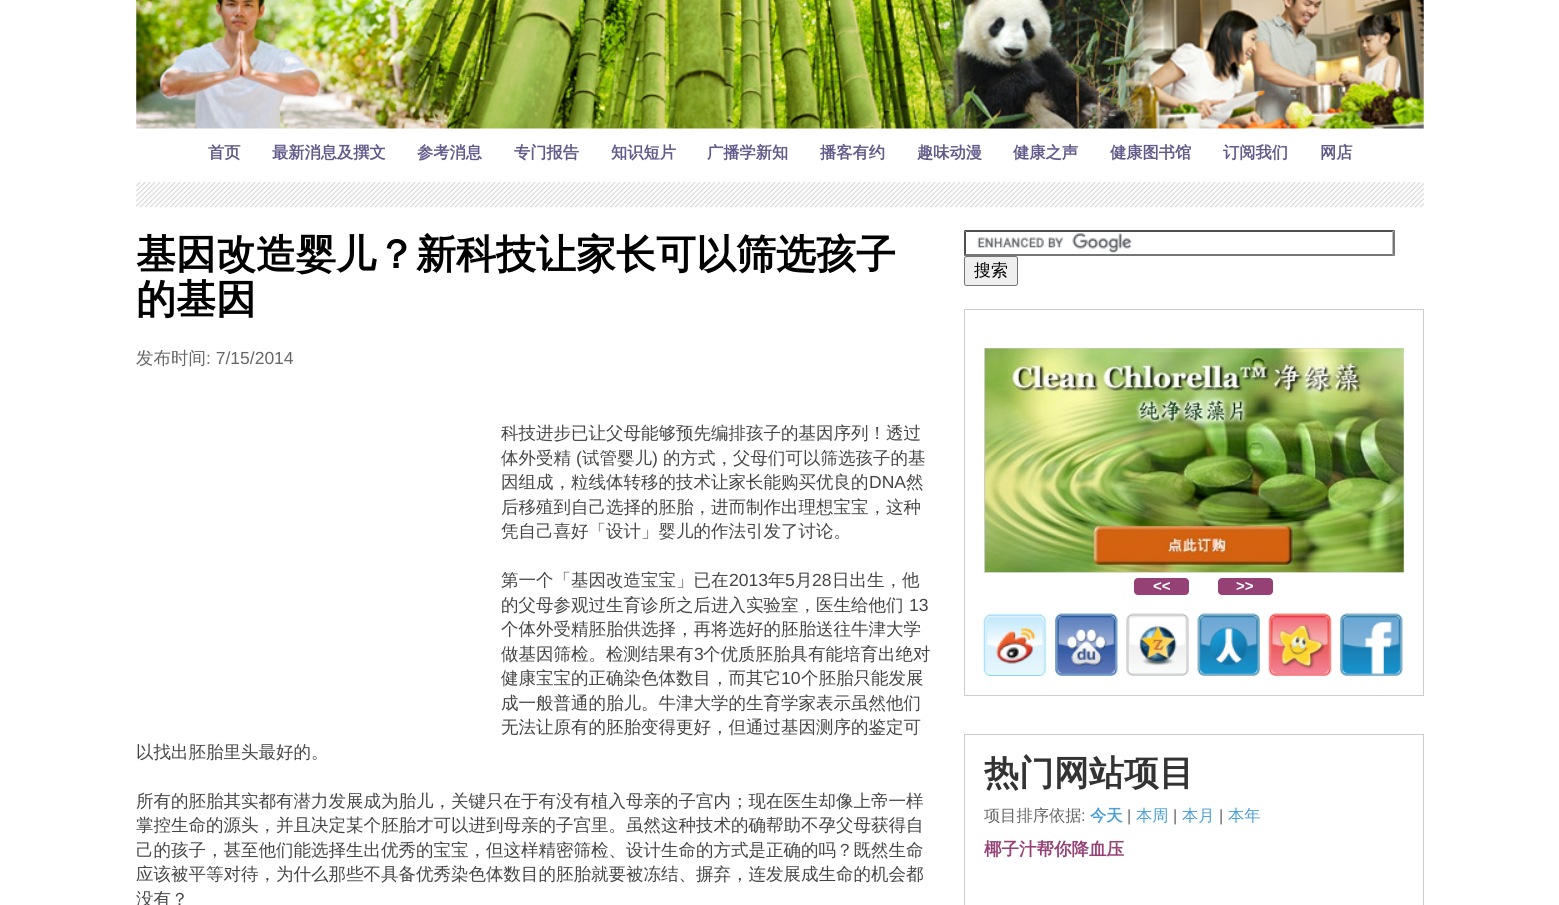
#include <cairo/cairo.h>
#include <math.h>
#include <stddef.h>

static cairo_t *cr;

static void use_color(int r, int g, int b) {
  cairo_set_source_rgb(cr, r / 255.0, g / 255.0, b / 255.0);
}

static void text(double x, double y, const char *s, const char *family, double size, int italic, int bold, int r, int g, int b) {
  cairo_select_font_face(cr, family, italic ? CAIRO_FONT_SLANT_ITALIC : CAIRO_FONT_SLANT_NORMAL,
    bold ? CAIRO_FONT_WEIGHT_BOLD : CAIRO_FONT_WEIGHT_NORMAL);
  cairo_set_font_size(cr, size);
  use_color(r, g, b);
  cairo_move_to(cr, x, y);
  cairo_show_text(cr, s);
}

static void box(double x, double y, double w, double h, int r, int g, int b) {
  use_color(r, g, b);
  cairo_rectangle(cr, x, y, w, h);
  cairo_fill(cr);
}

static void round_rect(double x, double y, double w, double h, double r) {
  cairo_new_sub_path(cr);
  cairo_arc(cr, x + w - r, y + h - r, r, 0, M_PI / 2);
  cairo_arc(cr, x + r, y + h - r, r, M_PI / 2, M_PI);
  cairo_arc(cr, x + r, y + r, r, M_PI, 1.5 * M_PI);
  cairo_arc(cr, x + w - r, y + r, r, 1.5 * M_PI, 2 * M_PI);
  cairo_close_path(cr);
}

static void picture(const char *path, double x, double y, double w, double h) {
  cairo_surface_t *image = cairo_image_surface_create_from_png(path);
  cairo_save(cr);
  cairo_set_source_surface(cr, image, x, y);
  cairo_rectangle(cr, x, y, w, h);
  cairo_fill(cr);
  cairo_restore(cr);
  cairo_surface_destroy(image);
}

static void draw(void) {
  use_color(255, 255, 255);
  cairo_paint(cr);
  picture("img_01.png", 136, 0, 1288, 129);
  picture("img_02.png", 136, 182, 1288, 26);
  picture("img_03.png", 977, 233, 155, 20);
  use_color(79, 79, 79);
  cairo_new_path(cr);
  cairo_move_to(cr, 964, 230);
  cairo_line_to(cr, 1395, 230);
  cairo_line_to(cr, 1392, 232);
  cairo_line_to(cr, 966, 232);
  cairo_close_path(cr);
  cairo_fill(cr);
  use_color(118, 118, 118);
  cairo_new_path(cr);
  cairo_move_to(cr, 1395, 230);
  cairo_line_to(cr, 1395, 256);
  cairo_line_to(cr, 1392.5, 254);
  cairo_line_to(cr, 1392.5, 232.5);
  cairo_close_path(cr);
  cairo_fill(cr);
  cairo_new_path(cr);
  cairo_move_to(cr, 1395, 256);
  cairo_line_to(cr, 964, 256);
  cairo_line_to(cr, 966, 254);
  cairo_line_to(cr, 1392, 254);
  cairo_close_path(cr);
  cairo_fill(cr);
  use_color(79, 79, 79);
  cairo_new_path(cr);
  cairo_move_to(cr, 964, 256);
  cairo_line_to(cr, 964, 230);
  cairo_line_to(cr, 966, 232.5);
  cairo_line_to(cr, 966, 254);
  cairo_close_path(cr);
  cairo_fill(cr);
  use_color(239, 239, 239);
  round_rect(964.5, 256.5, 53, 29, 2);
  cairo_fill_preserve(cr);
  use_color(118, 118, 118);
  cairo_set_line_width(cr, 1);
  cairo_stroke(cr);
  cairo_rectangle(cr, 964.5, 309.5, 459, 386);
  use_color(204, 204, 204);
  cairo_stroke(cr);
  box(985, 349, 419, 224, 238, 238, 238);
  cairo_save(cr);
  cairo_rectangle(cr, 984, 348, 420, 225);
  cairo_clip(cr);
  cairo_rectangle(cr, 984.5, 348.5, 421, 226);
  use_color(204, 204, 204);
  cairo_stroke(cr);
  cairo_restore(cr);
  picture("img_04.png", 985, 348, 419, 225);
  use_color(149, 65, 117);
  round_rect(1134.5, 578.5, 54, 16, 3.5);
  cairo_fill_preserve(cr);
  cairo_stroke(cr);
  round_rect(1218.5, 578.5, 54, 16, 3.5);
  cairo_fill_preserve(cr);
  cairo_stroke(cr);
  picture("img_05.png", 983, 613, 64, 63);
  picture("img_06.png", 1055, 613, 63, 63);
  picture("img_07.png", 1126, 613, 63, 63);
  picture("img_08.png", 1197, 613, 63, 63);
  picture("img_09.png", 1268, 613, 64, 63);
  picture("img_10.png", 1340, 613, 63, 63);
  cairo_rectangle(cr, 964.5, 734.5, 459, 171);
  use_color(204, 204, 204);
  cairo_stroke(cr);
  text(208, 158, "首页", "WenQuanYi Zen Hei", 16.25, 0, 1, 98, 90, 138);
  text(272, 158, "最新消息及撰文", "WenQuanYi Zen Hei", 16.25, 0, 1, 98, 90, 138);
  text(417, 158, "参考消息", "WenQuanYi Zen Hei", 16.25, 0, 1, 98, 90, 138);
  text(514, 158, "专门报告", "WenQuanYi Zen Hei", 16.25, 0, 1, 98, 90, 138);
  text(611, 158, "知识短片", "WenQuanYi Zen Hei", 16.25, 0, 1, 98, 90, 138);
  text(707, 158, "广播学新知", "WenQuanYi Zen Hei", 16.25, 0, 1, 98, 90, 138);
  text(820, 158, "播客有约", "WenQuanYi Zen Hei", 16.25, 0, 1, 98, 90, 138);
  text(917, 158, "趣味动漫", "WenQuanYi Zen Hei", 16.25, 0, 1, 98, 90, 138);
  text(1013, 158, "健康之声", "WenQuanYi Zen Hei", 16.25, 0, 1, 98, 90, 138);
  text(1110, 158, "健康图书馆", "WenQuanYi Zen Hei", 16.25, 0, 1, 98, 90, 138);
  text(1223, 158, "订阅我们", "WenQuanYi Zen Hei", 16.25, 0, 1, 98, 90, 138);
  text(1320, 158, "网店", "WenQuanYi Zen Hei", 16.25, 0, 1, 98, 90, 138);
  text(136, 268, "基因改造婴儿？新科技让家长可以筛选孩子", "WenQuanYi Zen Hei", 40, 0, 1, 0, 0, 0);
  text(136, 313, "的基因", "WenQuanYi Zen Hei", 40, 0, 1, 0, 0, 0);
  text(136, 364, "发布时间", "WenQuanYi Zen Hei Medium", 17.5, 0, 0, 102, 102, 102);
  text(206, 364, ": 7/15/2014", "Liberation Sans", 17.5, 0, 0, 102, 102, 102);
  text(501, 439, "科技进步已让父母能够预先编排孩子的基因序列！透过", "WenQuanYi Zen Hei Medium", 17.5, 0, 0, 69, 69, 69);
  text(501, 464, "体外受精", "WenQuanYi Zen Hei Medium", 17.5, 0, 0, 69, 69, 69);
  text(576, 464, "(", "Liberation Sans", 17.5, 0, 0, 69, 69, 69);
  text(582, 464, "试管婴儿", "WenQuanYi Zen Hei Medium", 17.5, 0, 0, 69, 69, 69);
  text(652, 464, ")", "Liberation Sans", 17.5, 0, 0, 69, 69, 69);
  text(663, 464, "的方式，父母们可以筛选孩子的基", "WenQuanYi Zen Hei Medium", 17.5, 0, 0, 69, 69, 69);
  text(501, 488, "因组成，粒线体转移的技术让家长能购买优良的", "WenQuanYi Zen Hei Medium", 17.5, 0, 0, 69, 69, 69);
  text(869, 488, "DNA", "Liberation Sans", 17.5, 0, 0, 69, 69, 69);
  text(906, 488, "然", "WenQuanYi Zen Hei Medium", 17.5, 0, 0, 69, 69, 69);
  text(501, 513, "后移殖到自己选择的胚胎，进而制作出理想宝宝，这种", "WenQuanYi Zen Hei Medium", 17.5, 0, 0, 69, 69, 69);
  text(501, 537, "凭自己喜好「设计」婴儿的作法引发了讨论。", "WenQuanYi Zen Hei Medium", 17.5, 0, 0, 69, 69, 69);
  text(501, 586, "第一个「基因改造宝宝」已在", "WenQuanYi Zen Hei Medium", 17.5, 0, 0, 69, 69, 69);
  text(729, 586, "2013", "Liberation Sans", 17.5, 0, 0, 69, 69, 69);
  text(768, 586, "年", "WenQuanYi Zen Hei Medium", 17.5, 0, 0, 69, 69, 69);
  text(785, 586, "5", "Liberation Sans", 17.5, 0, 0, 69, 69, 69);
  text(795, 586, "月", "WenQuanYi Zen Hei Medium", 17.5, 0, 0, 69, 69, 69);
  text(812, 586, "28", "Liberation Sans", 17.5, 0, 0, 69, 69, 69);
  text(832, 586, "日出生，他", "WenQuanYi Zen Hei Medium", 17.5, 0, 0, 69, 69, 69);
  text(501, 611, "的父母参观过生育诊所之后进入实验室，医生给他们", "WenQuanYi Zen Hei Medium", 17.5, 0, 0, 69, 69, 69);
  text(909, 611, "13", "Liberation Sans", 17.5, 0, 0, 69, 69, 69);
  text(501, 635, "个体外受精胚胎供选择，再将选好的胚胎送往牛津大学", "WenQuanYi Zen Hei Medium", 17.5, 0, 0, 69, 69, 69);
  text(501, 660, "做基因筛检。检测结果有", "WenQuanYi Zen Hei Medium", 17.5, 0, 0, 69, 69, 69);
  text(694, 660, "3", "Liberation Sans", 17.5, 0, 0, 69, 69, 69);
  text(703, 660, "个优质胚胎具有能培育出绝对", "WenQuanYi Zen Hei Medium", 17.5, 0, 0, 69, 69, 69);
  text(501, 684, "健康宝宝的正确染色体数目，而其它", "WenQuanYi Zen Hei Medium", 17.5, 0, 0, 69, 69, 69);
  text(781, 684, "10", "Liberation Sans", 17.5, 0, 0, 69, 69, 69);
  text(801, 684, "个胚胎只能发展", "WenQuanYi Zen Hei Medium", 17.5, 0, 0, 69, 69, 69);
  text(501, 709, "成一般普通的胎儿。牛津大学的生育学家表示虽然他们", "WenQuanYi Zen Hei Medium", 17.5, 0, 0, 69, 69, 69);
  text(501, 733, "无法让原有的胚胎变得更好，但通过基因测序的鉴定可", "WenQuanYi Zen Hei Medium", 17.5, 0, 0, 69, 69, 69);
  text(136, 758, "以找出胚胎里头最好的。", "WenQuanYi Zen Hei Medium", 17.5, 0, 0, 69, 69, 69);
  text(136, 807, "所有的胚胎其实都有潜力发展成为胎儿，关键只在于有没有植入母亲的子宫内；现在医生却像上帝一样", "WenQuanYi Zen Hei Medium", 17.5, 0, 0, 69, 69, 69);
  text(136, 831, "掌控生命的源头，并且决定某个胚胎才可以进到母亲的子宫里。虽然这种技术的确帮助不孕父母获得自", "WenQuanYi Zen Hei Medium", 17.5, 0, 0, 69, 69, 69);
  text(136, 856, "己的孩子，甚至他们能选择生出优秀的宝宝，但这样精密筛检、设计生命的方式是正确的吗？既然生命", "WenQuanYi Zen Hei Medium", 17.5, 0, 0, 69, 69, 69);
  text(136, 880, "应该被平等对待，为什么那些不具备优秀染色体数目的胚胎就要被冻结、摒弃，连发展成生命的机会都", "WenQuanYi Zen Hei Medium", 17.5, 0, 0, 69, 69, 69);
  text(136, 905, "没有？", "WenQuanYi Zen Hei Medium", 17.5, 0, 0, 69, 69, 69);
  text(974, 276, "搜索", "WenQuanYi Zen Hei Medium", 17, 0, 0, 0, 0, 0);
  text(1153, 591, "<<", "Liberation Sans", 15, 0, 1, 255, 255, 255);
  text(1236, 591, ">>", "Liberation Sans", 15, 0, 1, 255, 255, 255);
  text(984, 785, "热门网站项目", "WenQuanYi Zen Hei", 35, 0, 1, 51, 51, 51);
  text(984, 821, "项目排序依据", "WenQuanYi Zen Hei Medium", 16.25, 0, 0, 102, 102, 102);
  text(1081, 821, ":", "Liberation Sans", 16.25, 0, 0, 102, 102, 102);
  text(1090, 821, "今天", "WenQuanYi Zen Hei", 16.25, 0, 1, 74, 160, 214);
  text(1127, 821, "|", "Liberation Sans", 16.25, 0, 0, 102, 102, 102);
  text(1136, 821, "本周", "WenQuanYi Zen Hei Medium", 16.25, 0, 0, 74, 160, 214);
  text(1173, 821, "|", "Liberation Sans", 16.25, 0, 0, 102, 102, 102);
  text(1182, 821, "本月", "WenQuanYi Zen Hei Medium", 16.25, 0, 0, 74, 160, 214);
  text(1219, 821, "|", "Liberation Sans", 16.25, 0, 0, 102, 102, 102);
  text(1228, 821, "本年", "WenQuanYi Zen Hei Medium", 16.25, 0, 0, 74, 160, 214);
  text(984, 855, "椰子汁帮你降血压", "WenQuanYi Zen Hei", 17.5, 0, 1, 149, 65, 117);
}

int main(void) {
  cairo_surface_t *surface = cairo_image_surface_create(CAIRO_FORMAT_RGB24, 1559, 905);
  cr = cairo_create(surface);
  cairo_font_options_t *options = cairo_font_options_create();
  cairo_font_options_set_hint_metrics(options, CAIRO_HINT_METRICS_OFF);
  cairo_font_options_set_hint_style(options, CAIRO_HINT_STYLE_NONE);
  cairo_set_font_options(cr, options);
  cairo_set_miter_limit(cr, 4);
  draw();
  cairo_surface_write_to_png(surface, "out.png");
  cairo_font_options_destroy(options);
  cairo_destroy(cr);
  cairo_surface_destroy(surface);
  return 0;
}
